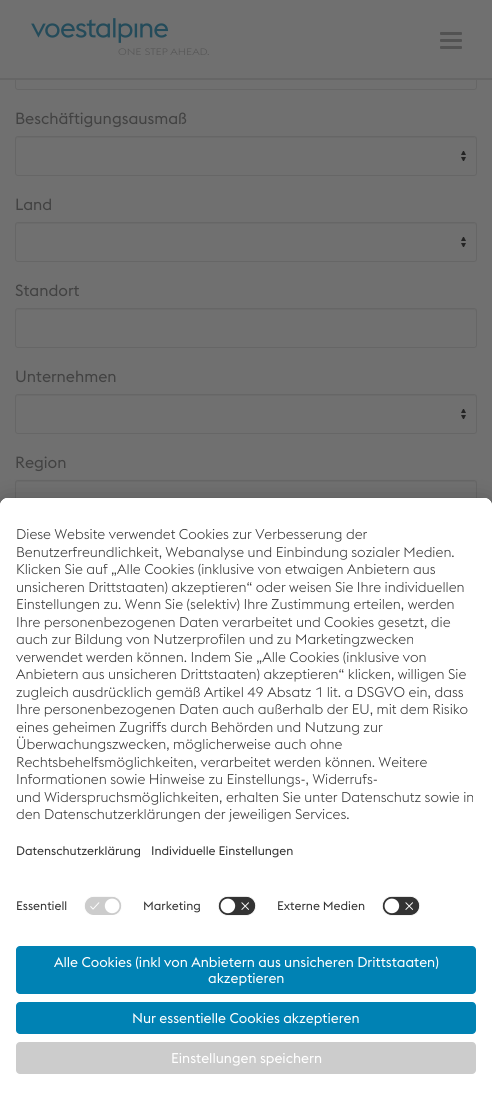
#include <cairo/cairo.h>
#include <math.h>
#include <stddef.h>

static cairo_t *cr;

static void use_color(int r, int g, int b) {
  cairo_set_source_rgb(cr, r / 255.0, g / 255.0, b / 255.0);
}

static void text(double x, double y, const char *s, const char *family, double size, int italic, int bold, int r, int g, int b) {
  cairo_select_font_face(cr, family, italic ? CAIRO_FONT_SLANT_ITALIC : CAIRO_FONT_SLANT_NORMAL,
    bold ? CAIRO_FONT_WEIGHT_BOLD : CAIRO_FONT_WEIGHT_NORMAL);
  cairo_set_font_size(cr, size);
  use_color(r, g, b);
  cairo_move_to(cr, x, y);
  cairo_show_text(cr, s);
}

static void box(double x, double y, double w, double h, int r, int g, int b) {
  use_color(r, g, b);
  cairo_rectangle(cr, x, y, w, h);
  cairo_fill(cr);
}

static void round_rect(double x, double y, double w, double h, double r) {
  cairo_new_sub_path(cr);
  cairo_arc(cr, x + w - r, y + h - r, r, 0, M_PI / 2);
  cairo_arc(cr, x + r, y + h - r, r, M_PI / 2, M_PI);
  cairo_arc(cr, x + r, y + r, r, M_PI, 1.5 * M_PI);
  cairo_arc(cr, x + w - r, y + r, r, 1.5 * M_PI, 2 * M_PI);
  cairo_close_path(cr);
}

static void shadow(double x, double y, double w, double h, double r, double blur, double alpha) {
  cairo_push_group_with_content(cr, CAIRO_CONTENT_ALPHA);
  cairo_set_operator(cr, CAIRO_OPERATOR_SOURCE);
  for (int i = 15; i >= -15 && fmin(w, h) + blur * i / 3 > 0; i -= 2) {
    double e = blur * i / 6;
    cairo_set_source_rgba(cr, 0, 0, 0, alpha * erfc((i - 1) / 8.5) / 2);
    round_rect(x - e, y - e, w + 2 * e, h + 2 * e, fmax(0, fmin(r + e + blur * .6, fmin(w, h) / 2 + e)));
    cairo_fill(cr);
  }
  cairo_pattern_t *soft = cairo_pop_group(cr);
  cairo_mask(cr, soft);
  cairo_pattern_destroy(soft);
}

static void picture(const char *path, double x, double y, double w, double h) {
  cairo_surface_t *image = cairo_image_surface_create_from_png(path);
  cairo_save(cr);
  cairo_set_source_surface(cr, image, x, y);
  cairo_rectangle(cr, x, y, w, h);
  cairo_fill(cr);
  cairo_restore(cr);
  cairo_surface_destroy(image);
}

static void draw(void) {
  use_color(112, 112, 112);
  cairo_paint(cr);
  round_rect(15.5, 50.5, 461, 39, 2.5);
  use_color(102, 102, 102);
  cairo_set_line_width(cr, 1);
  cairo_stroke(cr);
  box(15, 50, 462, 28, 112, 112, 112);
  box(0, 78, 492, 2, 102, 102, 102);
  picture("img_01.png", 31, 18, 178, 37);
  use_color(82, 82, 82);
  round_rect(440, 32, 22, 3, 1);
  cairo_fill(cr);
  round_rect(440, 39, 22, 3, 1);
  cairo_fill(cr);
  round_rect(440, 46, 22, 3, 1);
  cairo_fill(cr);
  picture("img_02.png", 461, 151, 5, 10);
  use_color(107, 107, 107);
  cairo_new_path(cr);
  cairo_move_to(cr, 18, 138);
  cairo_line_to(cr, 474, 138);
  cairo_curve_to(cr, 475, 138, 476, 139, 476, 140);
  cairo_line_to(cr, 476, 138);
  cairo_line_to(cr, 474, 137);
  cairo_line_to(cr, 18, 137);
  cairo_curve_to(cr, 16, 137, 16, 139, 16, 140);
  cairo_curve_to(cr, 16, 139, 17, 138, 18, 138);
  cairo_close_path(cr);
  cairo_fill(cr);
  round_rect(15.5, 136.5, 461, 39, 2.5);
  use_color(102, 102, 102);
  cairo_stroke(cr);
  picture("img_02.png", 461, 237, 5, 10);
  use_color(107, 107, 107);
  cairo_new_path(cr);
  cairo_move_to(cr, 18, 224);
  cairo_line_to(cr, 474, 224);
  cairo_curve_to(cr, 475, 224, 476, 225, 476, 226);
  cairo_line_to(cr, 476, 224);
  cairo_line_to(cr, 474, 223);
  cairo_line_to(cr, 18, 223);
  cairo_curve_to(cr, 16, 223, 16, 225, 16, 226);
  cairo_curve_to(cr, 16, 225, 17, 224, 18, 224);
  cairo_close_path(cr);
  cairo_fill(cr);
  round_rect(15.5, 222.5, 461, 39, 2.5);
  use_color(102, 102, 102);
  cairo_stroke(cr);
  use_color(107, 107, 107);
  cairo_new_path(cr);
  cairo_move_to(cr, 18, 310);
  cairo_line_to(cr, 474, 310);
  cairo_curve_to(cr, 475, 310, 476, 311, 476, 312);
  cairo_line_to(cr, 476, 310);
  cairo_line_to(cr, 474, 309);
  cairo_line_to(cr, 18, 309);
  cairo_curve_to(cr, 16, 309, 16, 311, 16, 312);
  cairo_curve_to(cr, 16, 311, 17, 310, 18, 310);
  cairo_close_path(cr);
  cairo_fill(cr);
  round_rect(15.5, 308.5, 461, 39, 2.5);
  use_color(102, 102, 102);
  cairo_stroke(cr);
  picture("img_02.png", 461, 409, 5, 10);
  use_color(107, 107, 107);
  cairo_new_path(cr);
  cairo_move_to(cr, 18, 396);
  cairo_line_to(cr, 474, 396);
  cairo_curve_to(cr, 475, 396, 476, 397, 476, 398);
  cairo_line_to(cr, 476, 396);
  cairo_line_to(cr, 474, 395);
  cairo_line_to(cr, 18, 395);
  cairo_curve_to(cr, 16, 395, 16, 397, 16, 398);
  cairo_curve_to(cr, 16, 397, 17, 396, 18, 396);
  cairo_close_path(cr);
  cairo_fill(cr);
  round_rect(15.5, 394.5, 461, 39, 2.5);
  use_color(102, 102, 102);
  cairo_stroke(cr);
  use_color(107, 107, 107);
  cairo_new_path(cr);
  cairo_move_to(cr, 18, 482);
  cairo_line_to(cr, 474, 482);
  cairo_curve_to(cr, 475, 482, 476, 483, 476, 484);
  cairo_line_to(cr, 476, 482);
  cairo_line_to(cr, 474, 481);
  cairo_line_to(cr, 18, 481);
  cairo_curve_to(cr, 16, 481, 16, 483, 16, 484);
  cairo_curve_to(cr, 16, 483, 17, 482, 18, 482);
  cairo_close_path(cr);
  cairo_fill(cr);
  round_rect(15.5, 480.5, 461, 39, 2.5);
  use_color(102, 102, 102);
  cairo_stroke(cr);
  use_color(0, 0, 0);
  shadow(0, 518, 492, 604, 8, 14, 0.3);
  shadow(0, 503, 492, 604, 8, 13, 0.22);
  use_color(255, 255, 255);
  cairo_new_path(cr);
  cairo_move_to(cr, 8, 498);
  cairo_line_to(cr, 484, 498);
  cairo_curve_to(cr, 488.5, 498, 492, 501.5, 492, 506);
  cairo_line_to(cr, 492, 1102);
  cairo_line_to(cr, 0, 1102);
  cairo_line_to(cr, 0, 506);
  cairo_curve_to(cr, 0, 501.5, 3.5, 498, 8, 498);
  cairo_close_path(cr);
  cairo_fill(cr);
  cairo_new_path(cr);
  cairo_move_to(cr, 8, 498);
  cairo_line_to(cr, 484, 498);
  cairo_curve_to(cr, 488.5, 498, 492, 501.5, 492, 506);
  cairo_line_to(cr, 492, 934);
  cairo_line_to(cr, 0, 934);
  cairo_line_to(cr, 0, 506);
  cairo_curve_to(cr, 0, 501.5, 3.5, 498, 8, 498);
  cairo_close_path(cr);
  cairo_fill(cr);
  cairo_new_path(cr);
  cairo_move_to(cr, 8, 498);
  cairo_line_to(cr, 484, 498);
  cairo_curve_to(cr, 488.5, 498, 492, 501.5, 492, 506);
  cairo_line_to(cr, 492, 890);
  cairo_line_to(cr, 0, 890);
  cairo_line_to(cr, 0, 506);
  cairo_curve_to(cr, 0, 501.5, 3.5, 498, 8, 498);
  cairo_close_path(cr);
  cairo_fill(cr);
  picture("img_03.png", 84, 896, 38, 19);
  picture("img_04.png", 218, 896, 38, 20);
  picture("img_04.png", 382, 896, 38, 20);
  use_color(0, 130, 180);
  round_rect(16, 946, 460, 48, 4);
  cairo_fill(cr);
  round_rect(16, 1002, 460, 32, 4);
  cairo_fill(cr);
  use_color(204, 204, 204);
  round_rect(16, 1042, 460, 32, 4);
  cairo_fill(cr);
  text(15, 124, "Beschäftigungsausmaß", "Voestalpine", 16, 0, 0, 66, 66, 66);
  text(15, 210, "Land", "Voestalpine", 16, 0, 0, 66, 66, 66);
  text(15, 296, "Standort", "Voestalpine", 16, 0, 0, 66, 66, 66);
  text(15, 382, "Unternehmen", "Voestalpine", 16, 0, 0, 66, 66, 66);
  text(15, 468, "Region", "Voestalpine", 16, 0, 0, 66, 66, 66);
  text(16, 539, "Diese Website verwendet Cookies zur Verbesserung der", "Voestalpine Light", 14, 0, 0, 51, 51, 51);
  text(16, 557, "Benutzerfreundlichkeit, Webanalyse und Einbindung sozialer Medien.", "Voestalpine Light", 14, 0, 0, 51, 51, 51);
  text(16, 574, "Klicken Sie auf „Alle Cookies (inklusive von etwaigen Anbietern aus", "Voestalpine Light", 14, 0, 0, 51, 51, 51);
  text(16, 592, "unsicheren Drittstaaten) akzeptieren“ oder weisen Sie Ihre individuellen", "Voestalpine Light", 14, 0, 0, 51, 51, 51);
  text(16, 609, "Einstellungen zu. Wenn Sie (selektiv) Ihre Zustimmung erteilen, werden", "Voestalpine Light", 14, 0, 0, 51, 51, 51);
  text(16, 627, "Ihre personenbezogenen Daten verarbeitet und Cookies gesetzt, die", "Voestalpine Light", 14, 0, 0, 51, 51, 51);
  text(16, 644, "auch zur Bildung von Nutzerprofilen und zu Marketingzwecken", "Voestalpine Light", 14, 0, 0, 51, 51, 51);
  text(16, 662, "verwendet werden können. Indem Sie „Alle Cookies (inklusive von", "Voestalpine Light", 14, 0, 0, 51, 51, 51);
  text(16, 679, "Anbietern aus unsicheren Drittstaaten) akzeptieren“ klicken, willigen Sie", "Voestalpine Light", 14, 0, 0, 51, 51, 51);
  text(16, 697, "zugleich ausdrücklich gemäß Artikel 49 Absatz 1 lit. a DSGVO ein, dass", "Voestalpine Light", 14, 0, 0, 51, 51, 51);
  text(16, 714, "Ihre personenbezogenen Daten auch außerhalb der EU, mit dem Risiko", "Voestalpine Light", 14, 0, 0, 51, 51, 51);
  text(16, 732, "eines geheimen Zugriffs durch Behörden und Nutzung zur", "Voestalpine Light", 14, 0, 0, 51, 51, 51);
  text(16, 749, "Überwachungszwecken, möglicherweise auch ohne", "Voestalpine Light", 14, 0, 0, 51, 51, 51);
  text(16, 767, "Rechtsbehelfsmöglichkeiten, verarbeitet werden können. Weitere", "Voestalpine Light", 14, 0, 0, 51, 51, 51);
  text(16, 784, "Informationen sowie Hinweise zu Einstellungs-, Widerrufs-", "Voestalpine Light", 14, 0, 0, 51, 51, 51);
  text(16, 802, "und Widerspruchsmöglichkeiten, erhalten Sie unter Datenschutz sowie in", "Voestalpine Light", 14, 0, 0, 51, 51, 51);
  text(16, 819, "den Datenschutzerklärungen der jeweiligen Services.", "Voestalpine Light", 14, 0, 0, 51, 51, 51);
  text(16, 855, "Datenschutzerklärung", "Voestalpine", 12.25, 0, 0, 51, 51, 51);
  text(151, 855, "Individuelle Einstellungen", "Voestalpine", 12.25, 0, 0, 51, 51, 51);
  text(16, 910, "Essentiell", "Voestalpine", 12.25, 0, 0, 51, 51, 51);
  text(143, 910, "Marketing", "Voestalpine", 12.25, 0, 0, 51, 51, 51);
  text(277, 910, "Externe Medien", "Voestalpine", 12.25, 0, 0, 51, 51, 51);
  text(54, 967, "Alle Cookies (inkl von Anbietern aus unsicheren Drittstaaten)", "Voestalpine", 14, 0, 0, 255, 255, 255);
  text(208, 983, "akzeptieren", "Voestalpine", 14, 0, 0, 255, 255, 255);
  text(132, 1023, "Nur essentielle Cookies akzeptieren", "Voestalpine", 14, 0, 0, 255, 255, 255);
  text(171, 1063, "Einstellungen speichern", "Voestalpine", 14, 0, 0, 255, 255, 255);
}

int main(void) {
  cairo_surface_t *surface = cairo_image_surface_create(CAIRO_FORMAT_RGB24, 492, 1102);
  cr = cairo_create(surface);
  cairo_font_options_t *options = cairo_font_options_create();
  cairo_font_options_set_hint_metrics(options, CAIRO_HINT_METRICS_OFF);
  cairo_font_options_set_hint_style(options, CAIRO_HINT_STYLE_NONE);
  cairo_set_font_options(cr, options);
  cairo_set_miter_limit(cr, 4);
  draw();
  cairo_surface_write_to_png(surface, "out.png");
  cairo_font_options_destroy(options);
  cairo_destroy(cr);
  cairo_surface_destroy(surface);
  return 0;
}
